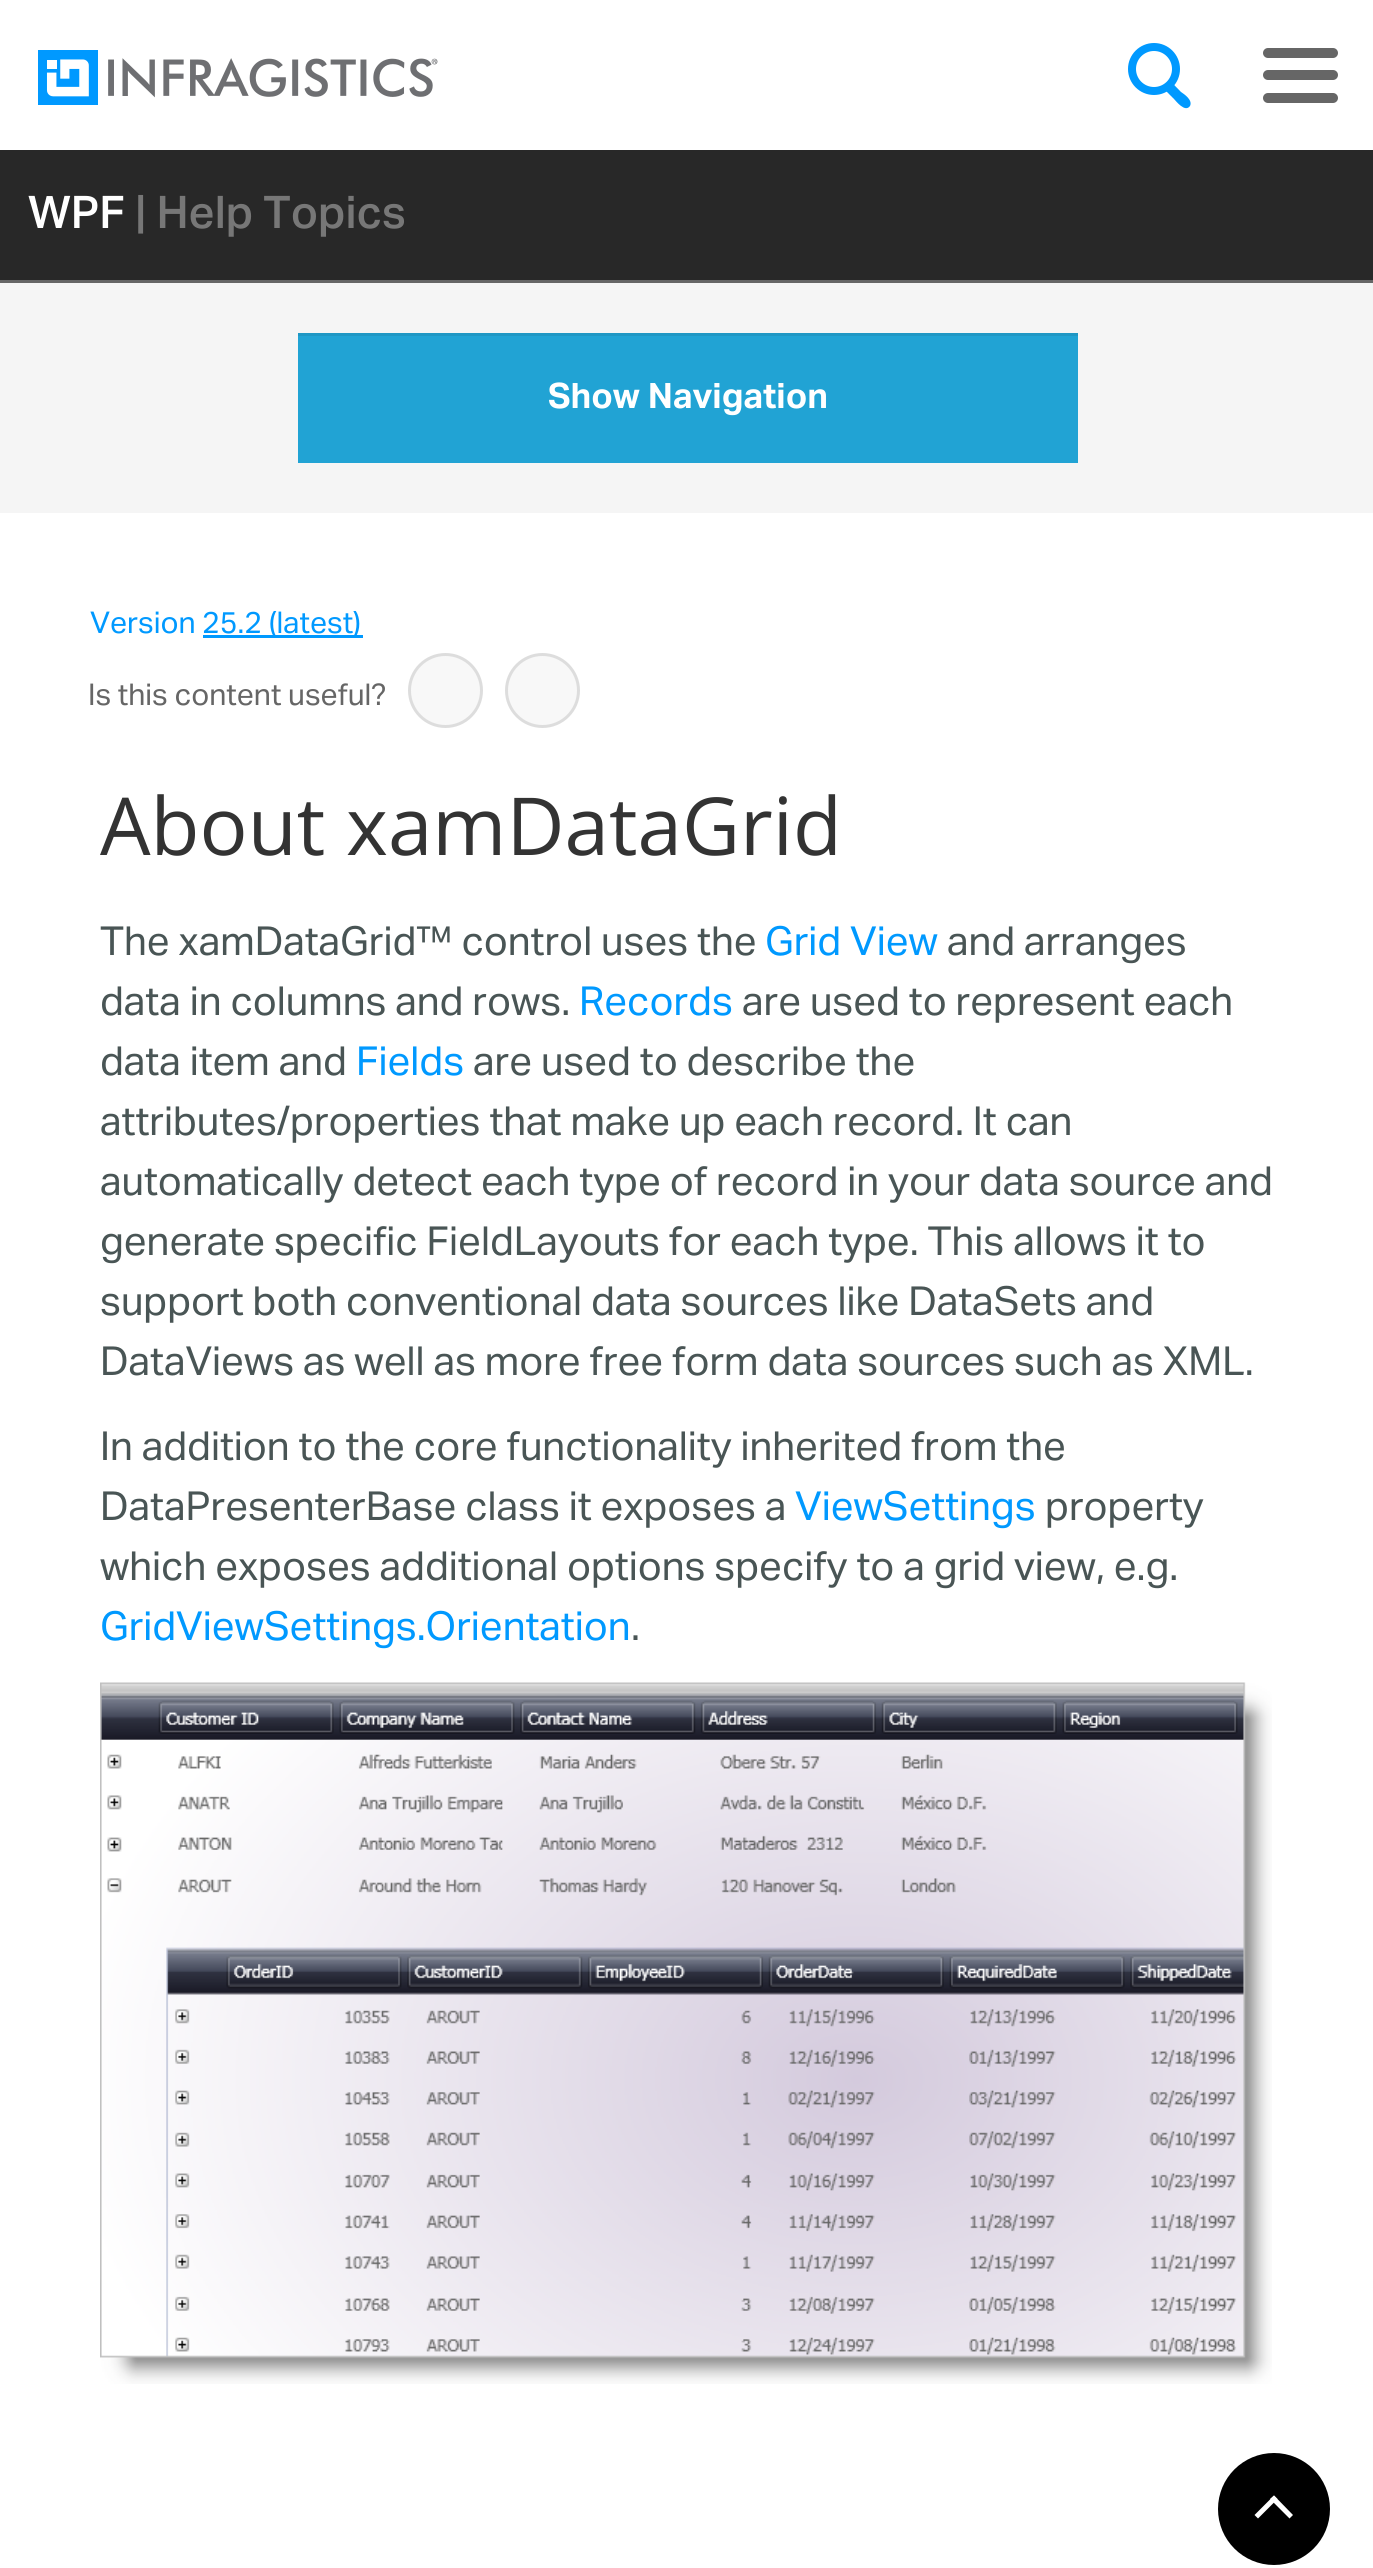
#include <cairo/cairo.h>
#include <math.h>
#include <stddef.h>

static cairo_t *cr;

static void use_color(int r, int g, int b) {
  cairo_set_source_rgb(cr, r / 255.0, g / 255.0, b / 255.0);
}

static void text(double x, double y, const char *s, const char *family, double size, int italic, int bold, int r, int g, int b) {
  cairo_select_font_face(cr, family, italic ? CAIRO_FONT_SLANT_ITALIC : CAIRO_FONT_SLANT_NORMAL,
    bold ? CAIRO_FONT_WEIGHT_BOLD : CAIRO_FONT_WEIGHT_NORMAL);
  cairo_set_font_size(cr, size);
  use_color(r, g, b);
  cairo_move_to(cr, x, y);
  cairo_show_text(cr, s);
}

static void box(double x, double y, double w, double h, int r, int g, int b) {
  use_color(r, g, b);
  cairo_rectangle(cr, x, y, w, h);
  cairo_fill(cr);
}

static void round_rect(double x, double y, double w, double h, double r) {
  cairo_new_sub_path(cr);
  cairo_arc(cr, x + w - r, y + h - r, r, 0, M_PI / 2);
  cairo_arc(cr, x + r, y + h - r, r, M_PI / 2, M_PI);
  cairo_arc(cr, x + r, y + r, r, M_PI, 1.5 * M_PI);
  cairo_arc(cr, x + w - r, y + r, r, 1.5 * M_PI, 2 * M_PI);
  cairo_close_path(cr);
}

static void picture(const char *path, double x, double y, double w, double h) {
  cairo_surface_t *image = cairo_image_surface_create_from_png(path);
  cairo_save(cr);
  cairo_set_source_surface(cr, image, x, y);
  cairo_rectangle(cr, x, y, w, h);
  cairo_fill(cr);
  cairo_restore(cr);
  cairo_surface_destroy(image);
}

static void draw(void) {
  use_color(255, 255, 255);
  cairo_paint(cr);
  picture("img_01.png", 38, 50, 400, 55);
  use_color(0, 153, 255);
  cairo_new_path(cr);
  cairo_move_to(cr, 1143, 53);
  cairo_line_to(cr, 1181, 92);
  cairo_curve_to(cr, 1184, 94, 1193, 100, 1190, 106);
  cairo_curve_to(cr, 1185, 113, 1176, 101, 1174, 99);
  cairo_line_to(cr, 1135, 60);
  cairo_curve_to(cr, 1132, 55, 1139, 49, 1143, 53);
  cairo_close_path(cr);
  cairo_fill(cr);
  use_color(255, 255, 255);
  cairo_arc(cr, 1154, 69, 22, 0, 2 * M_PI);
  cairo_fill_preserve(cr);
  use_color(0, 153, 255);
  cairo_set_line_width(cr, 8);
  cairo_stroke(cr);
  use_color(102, 102, 102);
  round_rect(1263, 70, 75, 10, 5);
  cairo_fill(cr);
  round_rect(1263, 48, 75, 10, 5);
  cairo_fill(cr);
  round_rect(1263, 93, 75, 10, 5);
  cairo_fill(cr);
  box(0, 150, 1373, 130, 40, 40, 40);
  box(0, 280, 1373, 3, 102, 102, 102);
  box(0, 283, 1373, 230, 245, 245, 245);
  box(298, 336, 780, 127, 33, 163, 212);
  box(298, 333, 780, 3, 31, 151, 196);
  box(203, 635, 160, 3, 0, 153, 255);
  use_color(248, 248, 248);
  cairo_arc(cr, 445.5, 690.5, 36, 0, 2 * M_PI);
  cairo_fill_preserve(cr);
  use_color(221, 221, 221);
  cairo_set_line_width(cr, 3);
  cairo_stroke(cr);
  use_color(248, 248, 248);
  cairo_arc(cr, 542.5, 690.5, 36, 0, 2 * M_PI);
  cairo_fill_preserve(cr);
  use_color(221, 221, 221);
  cairo_stroke(cr);
  picture("img_02.png", 100, 1682, 1172, 702);
  use_color(0, 0, 0);
  cairo_arc(cr, 1274, 2509, 56, 0, 2 * M_PI);
  cairo_fill(cr);
  use_color(255, 255, 255);
  cairo_new_path(cr);
  cairo_move_to(cr, 1274, 2495.5);
  cairo_line_to(cr, 1293, 2515);
  cairo_line_to(cr, 1289.5, 2518.5);
  cairo_line_to(cr, 1270, 2499);
  cairo_close_path(cr);
  cairo_fill(cr);
  cairo_new_path(cr);
  cairo_move_to(cr, 1274, 2495.5);
  cairo_line_to(cr, 1277.5, 2499);
  cairo_line_to(cr, 1258, 2518.5);
  cairo_line_to(cr, 1254.5, 2515);
  cairo_close_path(cr);
  cairo_fill(cr);
  text(28, 228, "WPF", "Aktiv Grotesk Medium", 45, 0, 0, 255, 255, 255);
  text(135, 228, "| Help Topics", "Aktiv Grotesk Medium", 45, 0, 0, 119, 119, 119);
  text(548, 408, "Show Navigation", "Aktiv Grotesk", 35, 0, 1, 255, 255, 255);
  text(90, 633, "Version", "Aktiv Grotesk", 30, 0, 0, 0, 153, 255);
  text(202, 633, "25.2 (latest)", "Aktiv Grotesk", 30, 0, 0, 0, 153, 255);
  text(88, 705, "Is this content useful?", "Aktiv Grotesk", 30, 0, 0, 102, 102, 102);
  text(100, 855, "About xamDataGrid", "Open Sans", 80, 0, 0, 51, 51, 51);
  text(100, 955, "The xamDataGrid™ control uses the", "Aktiv Grotesk", 40, 0, 0, 73, 85, 85);
  text(765, 955, "Grid View", "Aktiv Grotesk", 40, 0, 0, 0, 153, 255);
  text(947, 955, "and arranges", "Aktiv Grotesk", 40, 0, 0, 73, 85, 85);
  text(100, 1015, "data in columns and rows.", "Aktiv Grotesk", 40, 0, 0, 73, 85, 85);
  text(579, 1015, "Records", "Aktiv Grotesk", 40, 0, 0, 0, 153, 255);
  text(742, 1015, "are used to represent each", "Aktiv Grotesk", 40, 0, 0, 73, 85, 85);
  text(100, 1075, "data item and", "Aktiv Grotesk", 40, 0, 0, 73, 85, 85);
  text(356, 1075, "Fields", "Aktiv Grotesk", 40, 0, 0, 0, 153, 255);
  text(473, 1075, "are used to describe the", "Aktiv Grotesk", 40, 0, 0, 73, 85, 85);
  text(100, 1135, "attributes/properties that make up each record. It can", "Aktiv Grotesk", 40, 0, 0, 73, 85, 85);
  text(100, 1195, "automatically detect each type of record in your data source and", "Aktiv Grotesk", 40, 0, 0, 73, 85, 85);
  text(100, 1255, "generate specific FieldLayouts for each type. This allows it to", "Aktiv Grotesk", 40, 0, 0, 73, 85, 85);
  text(100, 1315, "support both conventional data sources like DataSets and", "Aktiv Grotesk", 40, 0, 0, 73, 85, 85);
  text(100, 1375, "DataViews as well as more free form data sources such as XML.", "Aktiv Grotesk", 40, 0, 0, 73, 85, 85);
  text(100, 1460, "In addition to the core functionality inherited from the", "Aktiv Grotesk", 40, 0, 0, 73, 85, 85);
  text(100, 1520, "DataPresenterBase class it exposes a", "Aktiv Grotesk", 40, 0, 0, 73, 85, 85);
  text(795, 1520, "ViewSettings", "Aktiv Grotesk", 40, 0, 0, 0, 153, 255);
  text(1045, 1520, "property", "Aktiv Grotesk", 40, 0, 0, 73, 85, 85);
  text(100, 1580, "which exposes additional options specify to a grid view, e.g.", "Aktiv Grotesk", 40, 0, 0, 73, 85, 85);
  text(100, 1640, "GridViewSettings.Orientation", "Aktiv Grotesk", 40, 0, 0, 0, 153, 255);
  text(631, 1640, ".", "Aktiv Grotesk", 40, 0, 0, 73, 85, 85);
}

int main(void) {
  cairo_surface_t *surface = cairo_image_surface_create(CAIRO_FORMAT_RGB24, 1373, 2568);
  cr = cairo_create(surface);
  cairo_font_options_t *options = cairo_font_options_create();
  cairo_font_options_set_hint_metrics(options, CAIRO_HINT_METRICS_OFF);
  cairo_font_options_set_hint_style(options, CAIRO_HINT_STYLE_NONE);
  cairo_set_font_options(cr, options);
  cairo_set_miter_limit(cr, 4);
  draw();
  cairo_surface_write_to_png(surface, "out.png");
  cairo_font_options_destroy(options);
  cairo_destroy(cr);
  cairo_surface_destroy(surface);
  return 0;
}
